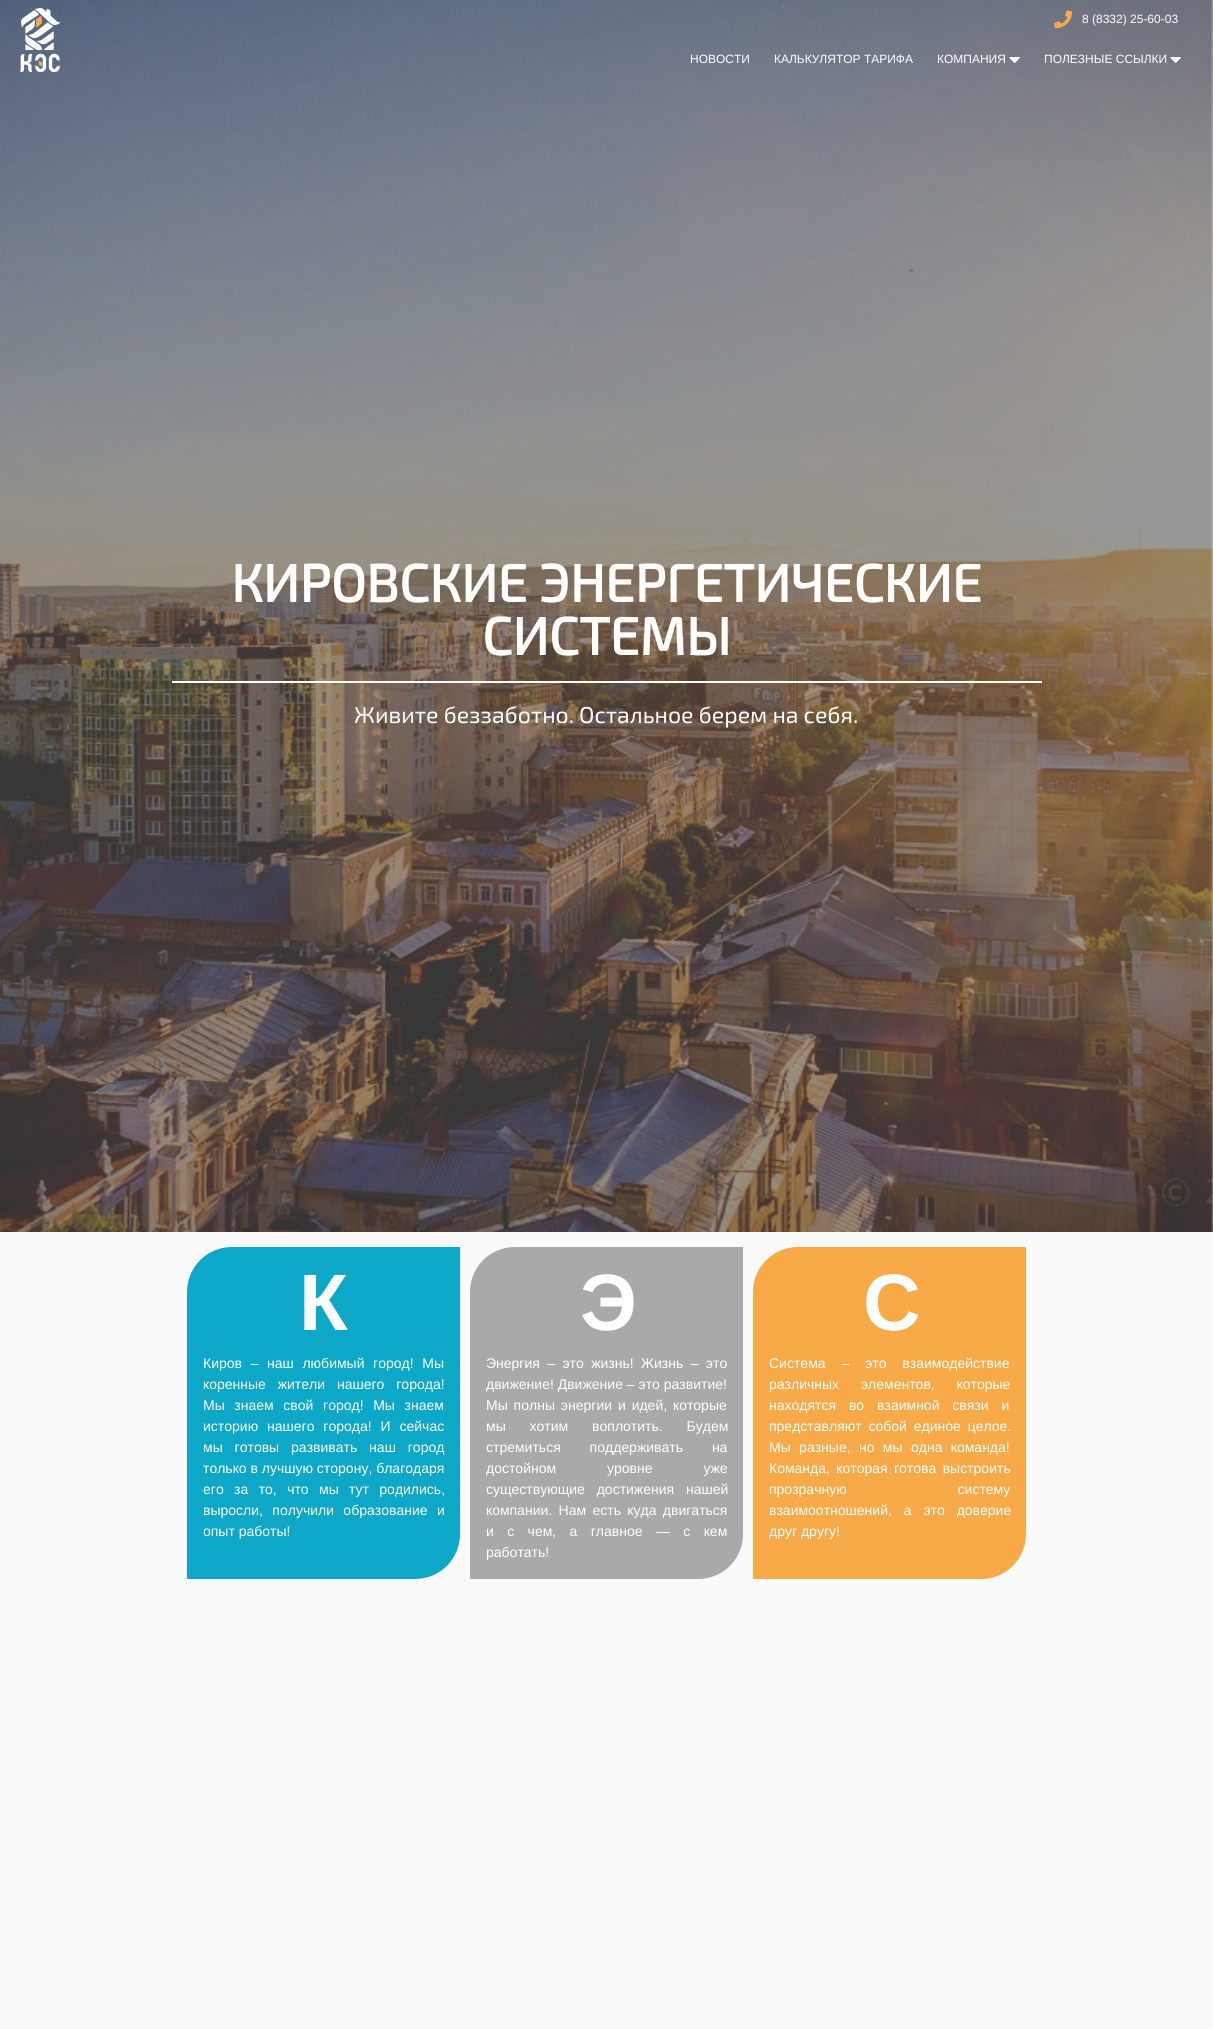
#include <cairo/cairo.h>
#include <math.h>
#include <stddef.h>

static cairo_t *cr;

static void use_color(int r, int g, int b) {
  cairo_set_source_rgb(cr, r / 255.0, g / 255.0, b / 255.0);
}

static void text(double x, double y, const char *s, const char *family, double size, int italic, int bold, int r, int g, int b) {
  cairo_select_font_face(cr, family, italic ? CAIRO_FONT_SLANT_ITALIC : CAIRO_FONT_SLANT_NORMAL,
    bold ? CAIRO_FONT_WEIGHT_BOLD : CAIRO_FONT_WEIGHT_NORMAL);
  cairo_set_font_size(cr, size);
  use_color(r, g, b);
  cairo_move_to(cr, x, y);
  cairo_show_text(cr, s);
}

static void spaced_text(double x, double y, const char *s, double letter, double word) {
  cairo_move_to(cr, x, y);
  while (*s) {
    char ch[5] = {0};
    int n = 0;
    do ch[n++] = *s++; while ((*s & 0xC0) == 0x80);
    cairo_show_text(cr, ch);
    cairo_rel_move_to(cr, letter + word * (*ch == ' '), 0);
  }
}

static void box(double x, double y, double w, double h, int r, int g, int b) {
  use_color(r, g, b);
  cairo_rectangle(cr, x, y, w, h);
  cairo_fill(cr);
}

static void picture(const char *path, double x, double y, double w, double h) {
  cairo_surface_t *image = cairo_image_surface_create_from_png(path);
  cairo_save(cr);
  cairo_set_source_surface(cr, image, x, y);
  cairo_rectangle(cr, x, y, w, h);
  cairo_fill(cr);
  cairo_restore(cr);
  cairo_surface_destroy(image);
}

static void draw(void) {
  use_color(250, 250, 250);
  cairo_paint(cr);
  picture("img_05.png", 0, 0, 1213, 1232);
  picture("img_01.png", 20, 8, 40, 64);
  picture("img_02.png", 1054, 10, 18, 19);
  picture("img_03.png", 1009, 57, 11, 6);
  picture("img_04.png", 1170, 57, 11, 6);
  box(172, 681, 870, 2, 255, 255, 255);
  use_color(13, 167, 200);
  cairo_new_path(cr);
  cairo_move_to(cr, 232, 1247);
  cairo_line_to(cr, 460, 1247);
  cairo_line_to(cr, 460, 1534);
  cairo_curve_to(cr, 460, 1559, 440, 1579, 415, 1579);
  cairo_line_to(cr, 187, 1579);
  cairo_line_to(cr, 187, 1292);
  cairo_curve_to(cr, 187, 1267, 207, 1247, 232, 1247);
  cairo_close_path(cr);
  cairo_fill(cr);
  use_color(169, 169, 169);
  cairo_new_path(cr);
  cairo_move_to(cr, 515, 1247);
  cairo_line_to(cr, 743, 1247);
  cairo_line_to(cr, 743, 1534);
  cairo_curve_to(cr, 743, 1559, 723, 1579, 698, 1579);
  cairo_line_to(cr, 470, 1579);
  cairo_line_to(cr, 470, 1292);
  cairo_curve_to(cr, 470, 1267, 490, 1247, 515, 1247);
  cairo_close_path(cr);
  cairo_fill(cr);
  use_color(247, 170, 71);
  cairo_new_path(cr);
  cairo_move_to(cr, 798, 1247);
  cairo_line_to(cr, 1026, 1247);
  cairo_line_to(cr, 1026, 1534);
  cairo_curve_to(cr, 1026, 1559, 1006, 1579, 981, 1579);
  cairo_line_to(cr, 753, 1579);
  cairo_line_to(cr, 753, 1292);
  cairo_curve_to(cr, 753, 1267, 773, 1247, 798, 1247);
  cairo_close_path(cr);
  cairo_fill(cr);
  text(1082, 23, "8 (8332) 25-60-03", "Liberation Sans", 12, 0, 0, 255, 255, 255);
  text(690, 63, "НОВОСТИ", "Liberation Sans", 12, 0, 0, 255, 255, 255);
  text(774, 63, "КАЛЬКУЛЯТОР ТАРИФА", "Liberation Sans", 12, 0, 0, 255, 255, 255);
  text(937, 63, "КОМПАНИЯ", "Liberation Sans", 12, 0, 0, 255, 255, 255);
  text(1044, 63, "ПОЛЕЗНЫЕ ССЫЛКИ", "Liberation Sans", 12, 0, 0, 255, 255, 255);
  text(231, 602, "КИРОВСКИЕ ЭНЕРГЕТИЧЕСКИЕ", "Exo 2", 53, 0, 1, 255, 255, 255);
  text(482, 655, "СИСТЕМЫ", "Exo 2", 53, 0, 1, 255, 255, 255);
  text(354, 723, "Живите беззаботно. Остальное берем на себя.", "Exo 2", 23, 0, 0, 255, 255, 255);
  text(299, 1330, "К", "Liberation Sans", 80, 0, 1, 255, 255, 255);
  cairo_select_font_face(cr, "Liberation Sans", CAIRO_FONT_SLANT_NORMAL, CAIRO_FONT_WEIGHT_NORMAL);
  cairo_set_font_size(cr, 14);
  spaced_text(203, 1368, "Киров – наш любимый город! Мы", 0, 4.75);
  spaced_text(203, 1389, "коренные жители нашего города!", 0, 8);
  spaced_text(203, 1410, "Мы знаем свой город! Мы знаем", 0, 5.75);
  spaced_text(203, 1431, "историю нашего города! И сейчас", 0, 5);
  spaced_text(203, 1452, "мы готовы развивать наш город", 0, 8);
  text(203, 1473, "только в лучшую сторону, благодаря", "Liberation Sans", 14, 0, 0, 255, 255, 255);
  spaced_text(203, 1494, "его за то, что мы тут родились,", 0, 6.5);
  spaced_text(203, 1515, "выросли, получили образование и", 0, 5.5);
  text(203, 1536, "опыт работы!", "Liberation Sans", 14, 0, 0, 255, 255, 255);
  text(580, 1330, "Э", "Liberation Sans", 80, 0, 1, 255, 255, 255);
  cairo_select_font_face(cr, "Liberation Sans", CAIRO_FONT_SLANT_NORMAL, CAIRO_FONT_WEIGHT_NORMAL);
  cairo_set_font_size(cr, 14);
  spaced_text(486, 1368, "Энергия – это жизнь! Жизнь – это", 0, 3.5);
  text(486, 1389, "движение! Движение – это развитие!", "Liberation Sans", 14, 0, 0, 255, 255, 255);
  spaced_text(486, 1410, "Мы полны энергии и идей, которые", 0, 2);
  spaced_text(486, 1431, "мы хотим воплотить. Будем", 0, 20);
  spaced_text(486, 1452, "стремиться поддерживать на", 0, 25);
  spaced_text(486, 1473, "достойном уровне уже", 0, 47);
  spaced_text(486, 1494, "существующие достижения нашей", 0, 8);
  spaced_text(486, 1515, "компании. Нам есть куда двигаться", 0, 2.5);
  spaced_text(486, 1536, "и с чем, а главное — с кем", 0, 9.5);
  text(486, 1557, "работать!", "Liberation Sans", 14, 0, 0, 255, 255, 255);
  text(863, 1330, "С", "Liberation Sans", 80, 0, 1, 255, 255, 255);
  cairo_select_font_face(cr, "Liberation Sans", CAIRO_FONT_SLANT_NORMAL, CAIRO_FONT_WEIGHT_NORMAL);
  cairo_set_font_size(cr, 14);
  spaced_text(769, 1368, "Система – это взаимодействие", 0, 12);
  spaced_text(769, 1389, "различных элементов, которые", 0, 18);
  spaced_text(769, 1410, "находятся во взаимной связи и", 0, 9);
  spaced_text(769, 1431, "представляют собой единое целое.", 0, 3);
  spaced_text(769, 1452, "Мы разные, но мы одна команда!", 0, 4.5);
  spaced_text(769, 1473, "Команда, которая готова выстроить", 0, 2.5);
  spaced_text(769, 1494, "прозрачную систему", 0, 107);
  spaced_text(769, 1515, "взаимоотношений, а это доверие", 0, 8);
  text(769, 1536, "друг другу!", "Liberation Sans", 14, 0, 0, 255, 255, 255);
}

int main(void) {
  cairo_surface_t *surface = cairo_image_surface_create(CAIRO_FORMAT_RGB24, 1213, 2029);
  cr = cairo_create(surface);
  cairo_font_options_t *options = cairo_font_options_create();
  cairo_font_options_set_hint_metrics(options, CAIRO_HINT_METRICS_OFF);
  cairo_font_options_set_hint_style(options, CAIRO_HINT_STYLE_NONE);
  cairo_set_font_options(cr, options);
  cairo_set_miter_limit(cr, 4);
  draw();
  cairo_surface_write_to_png(surface, "out.png");
  cairo_font_options_destroy(options);
  cairo_destroy(cr);
  cairo_surface_destroy(surface);
  return 0;
}
